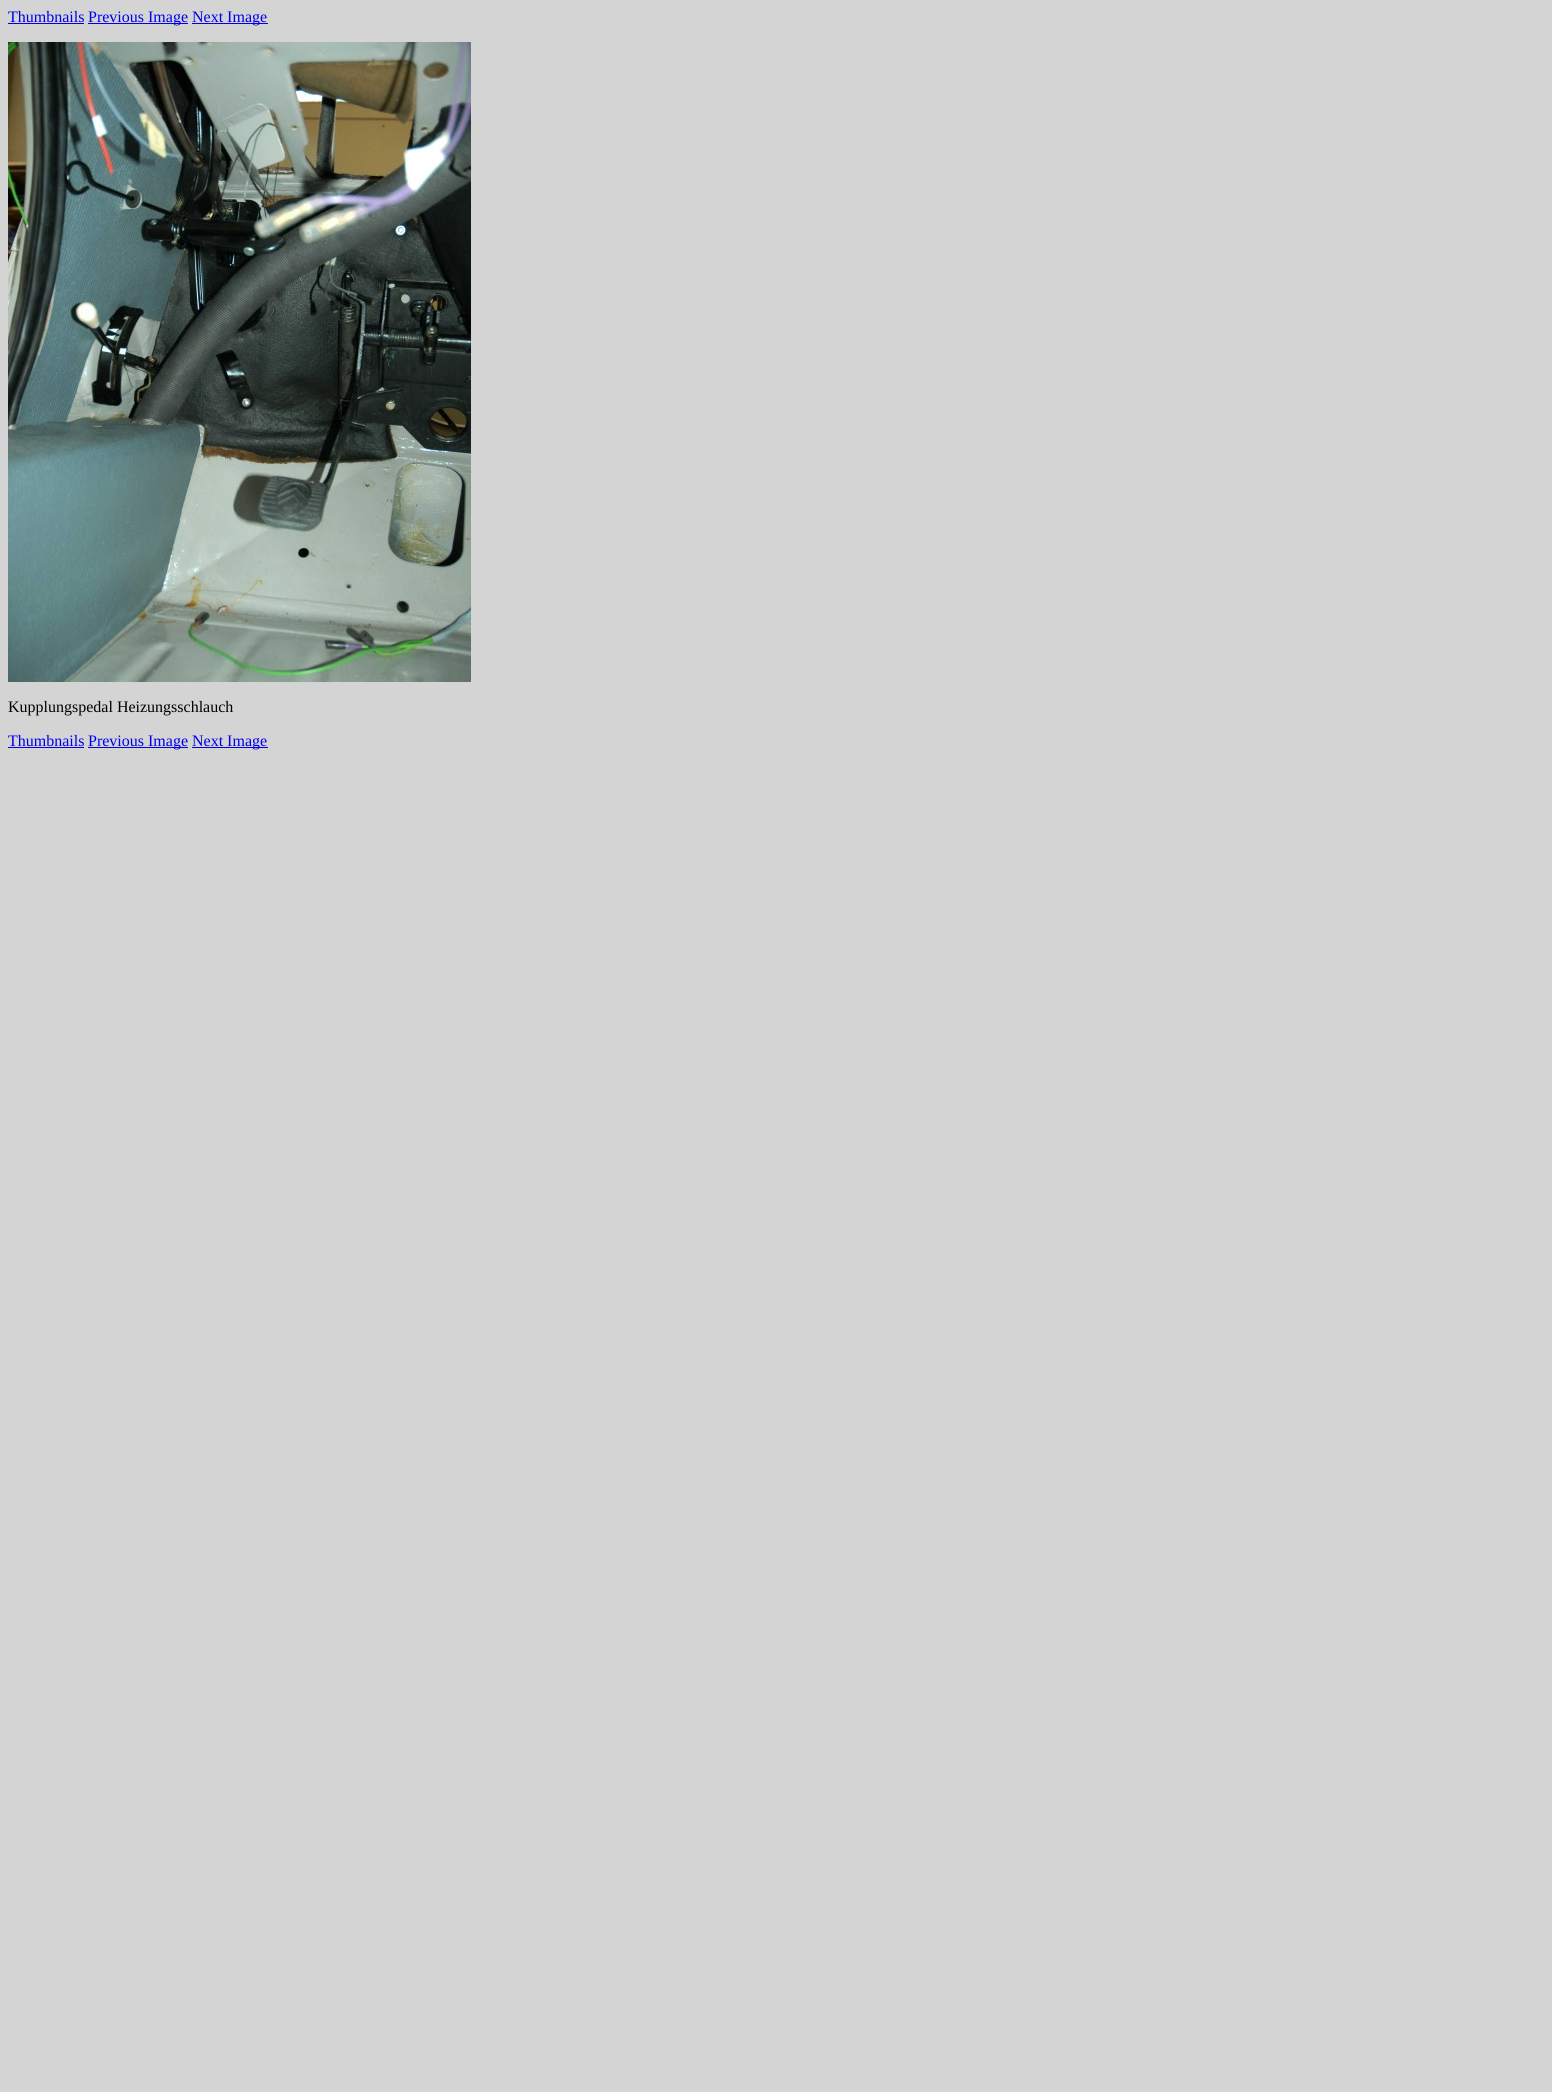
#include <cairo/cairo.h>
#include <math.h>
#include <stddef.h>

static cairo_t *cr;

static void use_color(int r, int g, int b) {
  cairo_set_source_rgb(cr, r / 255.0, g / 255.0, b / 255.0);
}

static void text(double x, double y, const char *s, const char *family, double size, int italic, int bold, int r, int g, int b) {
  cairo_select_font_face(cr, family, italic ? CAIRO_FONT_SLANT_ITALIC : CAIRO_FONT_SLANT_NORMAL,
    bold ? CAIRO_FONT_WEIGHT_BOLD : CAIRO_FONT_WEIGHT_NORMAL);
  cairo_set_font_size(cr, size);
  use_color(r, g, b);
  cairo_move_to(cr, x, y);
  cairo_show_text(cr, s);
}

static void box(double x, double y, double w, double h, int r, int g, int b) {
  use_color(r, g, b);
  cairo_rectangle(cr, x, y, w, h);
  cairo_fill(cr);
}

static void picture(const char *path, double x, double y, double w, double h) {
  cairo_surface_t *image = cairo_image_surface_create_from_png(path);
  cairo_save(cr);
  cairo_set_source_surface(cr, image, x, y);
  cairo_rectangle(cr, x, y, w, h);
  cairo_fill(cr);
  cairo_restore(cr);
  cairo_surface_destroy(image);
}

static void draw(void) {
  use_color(212, 212, 212);
  cairo_paint(cr);
  box(8, 23, 76, 1, 0, 0, 238);
  box(88, 23, 100, 1, 0, 0, 238);
  box(192, 23, 76, 1, 0, 0, 238);
  picture("img_01.png", 8, 42, 463, 640);
  box(8, 747, 76, 1, 0, 0, 238);
  box(88, 747, 100, 1, 0, 0, 238);
  box(192, 747, 76, 1, 0, 0, 238);
  text(8, 22, "Thumbnails", "Liberation Serif", 16, 0, 0, 0, 0, 238);
  text(88, 22, "Previous Image", "Liberation Serif", 16, 0, 0, 0, 0, 238);
  text(192, 22, "Next Image", "Liberation Serif", 16, 0, 0, 0, 0, 238);
  text(8, 712, "Kupplungspedal Heizungsschlauch", "Liberation Serif", 16, 0, 0, 0, 0, 0);
  text(8, 746, "Thumbnails", "Liberation Serif", 16, 0, 0, 0, 0, 238);
  text(88, 746, "Previous Image", "Liberation Serif", 16, 0, 0, 0, 0, 238);
  text(192, 746, "Next Image", "Liberation Serif", 16, 0, 0, 0, 0, 238);
}

int main(void) {
  cairo_surface_t *surface = cairo_image_surface_create(CAIRO_FORMAT_RGB24, 1552, 2092);
  cr = cairo_create(surface);
  cairo_font_options_t *options = cairo_font_options_create();
  cairo_font_options_set_hint_metrics(options, CAIRO_HINT_METRICS_OFF);
  cairo_font_options_set_hint_style(options, CAIRO_HINT_STYLE_NONE);
  cairo_set_font_options(cr, options);
  cairo_set_miter_limit(cr, 4);
  draw();
  cairo_surface_write_to_png(surface, "out.png");
  cairo_font_options_destroy(options);
  cairo_destroy(cr);
  cairo_surface_destroy(surface);
  return 0;
}
